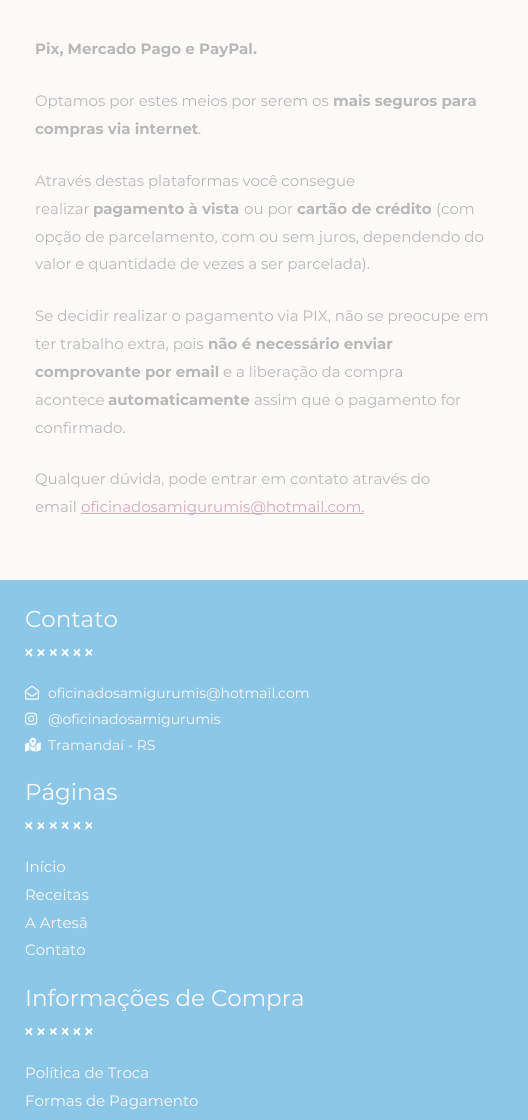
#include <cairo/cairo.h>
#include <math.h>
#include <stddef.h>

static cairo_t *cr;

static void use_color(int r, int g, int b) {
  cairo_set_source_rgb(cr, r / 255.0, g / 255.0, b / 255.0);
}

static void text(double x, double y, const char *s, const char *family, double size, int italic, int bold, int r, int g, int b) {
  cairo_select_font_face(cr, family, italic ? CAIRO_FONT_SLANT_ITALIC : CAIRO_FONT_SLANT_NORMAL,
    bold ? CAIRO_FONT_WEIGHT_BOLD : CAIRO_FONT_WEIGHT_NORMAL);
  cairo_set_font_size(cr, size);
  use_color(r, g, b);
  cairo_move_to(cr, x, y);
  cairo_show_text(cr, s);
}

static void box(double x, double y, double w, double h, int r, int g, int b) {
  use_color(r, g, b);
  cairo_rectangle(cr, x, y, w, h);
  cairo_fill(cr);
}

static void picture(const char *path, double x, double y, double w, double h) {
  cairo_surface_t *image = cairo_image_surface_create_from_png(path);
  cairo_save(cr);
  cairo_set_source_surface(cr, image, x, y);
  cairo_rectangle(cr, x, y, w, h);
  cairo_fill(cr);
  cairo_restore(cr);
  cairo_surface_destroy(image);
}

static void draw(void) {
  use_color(252, 249, 249);
  cairo_paint(cr);
  box(81, 513, 283, 1, 212, 171, 184);
  box(0, 580, 528, 540, 141, 199, 231);
  picture("img_01.png", 25, 648, 68, 9);
  picture("img_02.png", 25, 685, 14, 15);
  picture("img_03.png", 25, 712, 13, 13);
  picture("img_04.png", 25, 737, 16, 15);
  picture("img_01.png", 25, 821, 68, 9);
  picture("img_01.png", 25, 1027, 68, 9);
  text(35, 54, "Pix, Mercado Pago e PayPal.", "Montserrat", 15, 0, 1, 184, 184, 184);
  text(35, 106, "Optamos por estes meios por serem os", "Montserrat", 15, 0, 0, 184, 184, 184);
  text(333, 106, "mais seguros para", "Montserrat", 15, 0, 1, 184, 184, 184);
  text(35, 134, "compras via internet", "Montserrat", 15, 0, 1, 184, 184, 184);
  text(198, 134, ".", "Montserrat", 15, 0, 0, 184, 184, 184);
  text(35, 186, "Através destas plataformas você consegue", "Montserrat", 15, 0, 0, 184, 184, 184);
  text(35, 214, "realizar", "Montserrat", 15, 0, 0, 184, 184, 184);
  text(93, 214, "pagamento à vista", "Montserrat", 15, 0, 1, 184, 184, 184);
  text(244, 214, "ou por", "Montserrat", 15, 0, 0, 184, 184, 184);
  text(297, 214, "cartão de crédito", "Montserrat", 15, 0, 1, 184, 184, 184);
  text(436, 214, "(com", "Montserrat", 15, 0, 0, 184, 184, 184);
  text(35, 242, "opção de parcelamento, com ou sem juros, dependendo do", "Montserrat", 15, 0, 0, 184, 184, 184);
  text(35, 269, "valor e quantidade de vezes a ser parcelada).", "Montserrat", 15, 0, 0, 184, 184, 184);
  text(35, 321, "Se decidir realizar o pagamento via PIX, não se preocupe em", "Montserrat", 15, 0, 0, 184, 184, 184);
  text(35, 349, "ter trabalho extra, pois", "Montserrat", 15, 0, 0, 184, 184, 184);
  text(208, 349, "não é necessário enviar", "Montserrat", 15, 0, 1, 184, 184, 184);
  text(35, 377, "comprovante por email", "Montserrat", 15, 0, 1, 184, 184, 184);
  text(223, 377, "e a liberação da compra", "Montserrat", 15, 0, 0, 184, 184, 184);
  text(35, 405, "acontece", "Montserrat", 15, 0, 0, 184, 184, 184);
  text(108, 405, "automaticamente", "Montserrat", 15, 0, 1, 184, 184, 184);
  text(254, 405, "assim que o pagamento for", "Montserrat", 15, 0, 0, 184, 184, 184);
  text(35, 433, "confirmado.", "Montserrat", 15, 0, 0, 184, 184, 184);
  text(35, 484, "Qualquer dúvida, pode entrar em contato através do", "Montserrat", 15, 0, 0, 184, 184, 184);
  text(35, 512, "email", "Montserrat", 15, 0, 0, 184, 184, 184);
  text(81, 512, "oficinadosamigurumis@hotmail.com.", "Montserrat", 15, 0, 0, 212, 171, 184);
  text(25, 627, "Contato", "Montserrat", 23, 0, 0, 249, 248, 249);
  text(48, 698, "oficinadosamigurumis@hotmail.com", "Montserrat", 14, 0, 0, 249, 248, 249);
  text(48, 724, "@oficinadosamigurumis", "Montserrat", 14, 0, 0, 249, 248, 249);
  text(48, 750, "Tramandaí - RS", "Montserrat", 14, 0, 0, 249, 248, 249);
  text(25, 800, "Páginas", "Montserrat", 23, 0, 0, 249, 248, 249);
  text(25, 872, "Início", "Montserrat", 15, 0, 0, 249, 248, 249);
  text(25, 900, "Receitas", "Montserrat", 15, 0, 0, 249, 248, 249);
  text(25, 928, "A Artesã", "Montserrat", 15, 0, 0, 249, 248, 249);
  text(25, 955, "Contato", "Montserrat", 15, 0, 0, 249, 248, 249);
  text(25, 1006, "Informações de Compra", "Montserrat", 23, 0, 0, 249, 248, 249);
  text(25, 1078, "Política de Troca", "Montserrat", 15, 0, 0, 249, 248, 249);
  text(25, 1106, "Formas de Pagamento", "Montserrat", 15, 0, 0, 249, 248, 249);
}

int main(void) {
  cairo_surface_t *surface = cairo_image_surface_create(CAIRO_FORMAT_RGB24, 528, 1120);
  cr = cairo_create(surface);
  cairo_font_options_t *options = cairo_font_options_create();
  cairo_font_options_set_hint_metrics(options, CAIRO_HINT_METRICS_OFF);
  cairo_font_options_set_hint_style(options, CAIRO_HINT_STYLE_NONE);
  cairo_set_font_options(cr, options);
  cairo_set_miter_limit(cr, 4);
  draw();
  cairo_surface_write_to_png(surface, "out.png");
  cairo_font_options_destroy(options);
  cairo_destroy(cr);
  cairo_surface_destroy(surface);
  return 0;
}
